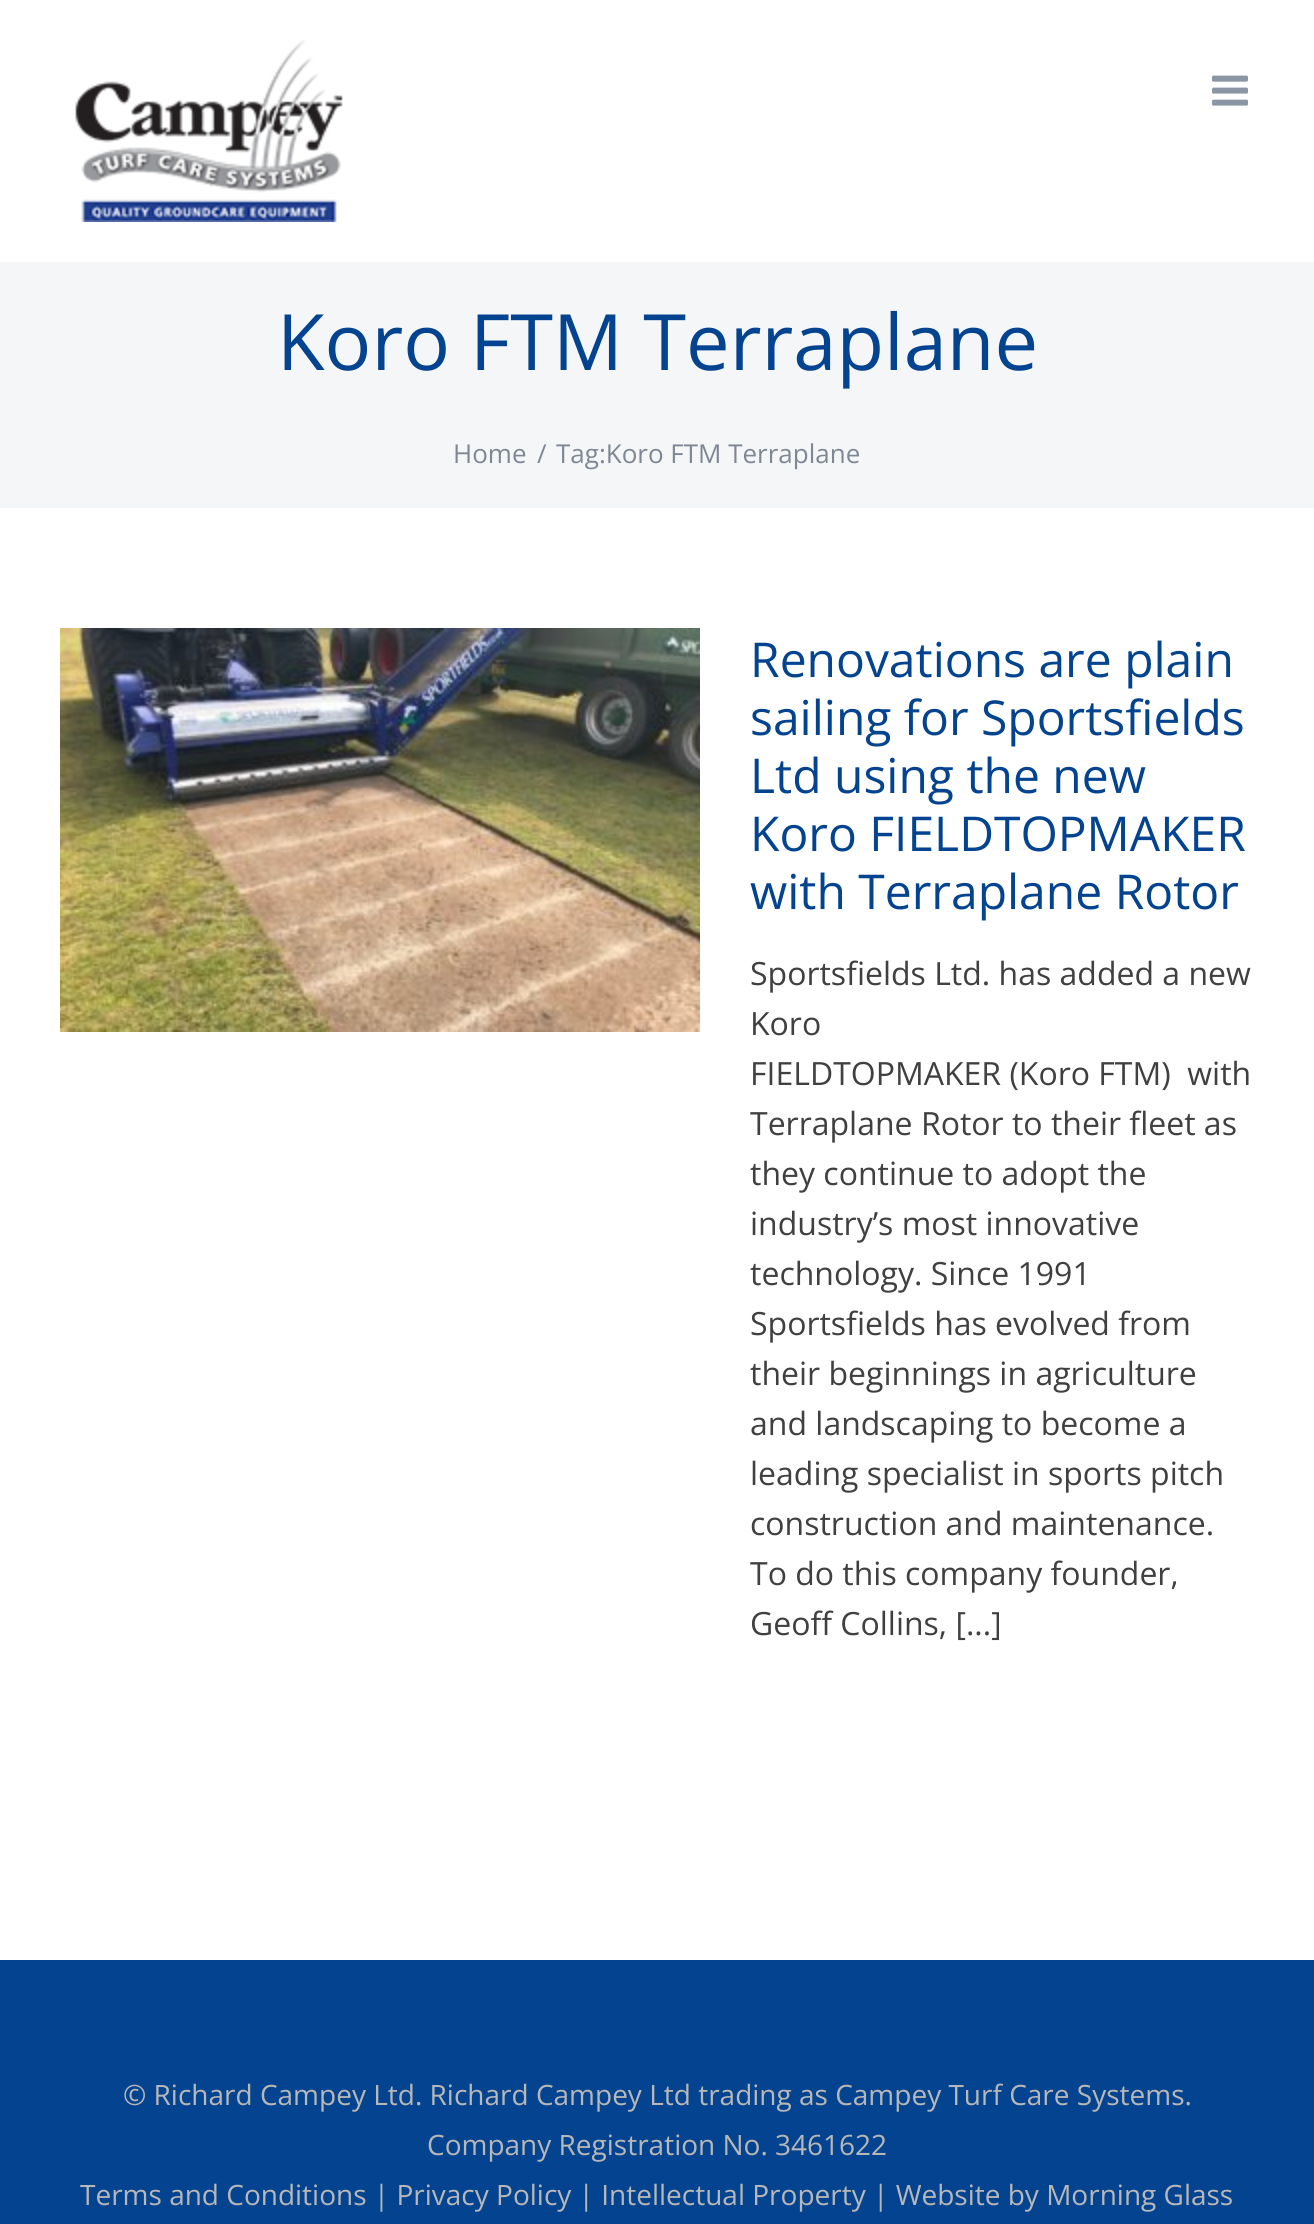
#include <cairo/cairo.h>
#include <math.h>
#include <stddef.h>

static cairo_t *cr;

static void use_color(int r, int g, int b) {
  cairo_set_source_rgb(cr, r / 255.0, g / 255.0, b / 255.0);
}

static void text(double x, double y, const char *s, const char *family, double size, int italic, int bold, int r, int g, int b) {
  cairo_select_font_face(cr, family, italic ? CAIRO_FONT_SLANT_ITALIC : CAIRO_FONT_SLANT_NORMAL,
    bold ? CAIRO_FONT_WEIGHT_BOLD : CAIRO_FONT_WEIGHT_NORMAL);
  cairo_set_font_size(cr, size);
  use_color(r, g, b);
  cairo_move_to(cr, x, y);
  cairo_show_text(cr, s);
}

static void box(double x, double y, double w, double h, int r, int g, int b) {
  use_color(r, g, b);
  cairo_rectangle(cr, x, y, w, h);
  cairo_fill(cr);
}

static void picture(const char *path, double x, double y, double w, double h) {
  cairo_surface_t *image = cairo_image_surface_create_from_png(path);
  cairo_save(cr);
  cairo_set_source_surface(cr, image, x, y);
  cairo_rectangle(cr, x, y, w, h);
  cairo_fill(cr);
  cairo_restore(cr);
  cairo_surface_destroy(image);
}

static void draw(void) {
  use_color(255, 255, 255);
  cairo_paint(cr);
  picture("img_01.png", 75, 40, 268, 182);
  picture("img_02.png", 1212, 75, 36, 31);
  box(0, 262, 1314, 246, 244, 246, 248);
  picture("img_03.png", 60, 628, 640, 404);
  box(0, 1960, 1314, 264, 3, 67, 143);
  text(277, 370, "Koro FTM Terraplane", "Open Sans", 77.75, 0, 0, 3, 67, 143);
  text(453, 463, "Home", "Open Sans", 26, 0, 0, 127, 135, 149);
  text(537, 463, "/", "Open Sans", 26, 0, 0, 127, 135, 149);
  text(556, 463, "Tag:Koro FTM Terraplane", "Open Sans", 26, 0, 0, 127, 135, 149);
  text(750, 677, "Renovations are plain", "Open Sans", 48, 0, 0, 3, 67, 143);
  text(750, 735, "sailing for Sportsfields", "Open Sans", 48, 0, 0, 3, 67, 143);
  text(750, 793, "Ltd using the new", "Open Sans", 48, 0, 0, 3, 67, 143);
  text(750, 851, "Koro FIELDTOPMAKER", "Open Sans", 48, 0, 0, 3, 67, 143);
  text(750, 909, "with Terraplane Rotor", "Open Sans", 48, 0, 0, 3, 67, 143);
  text(750, 985, "Sportsfields Ltd. has added a new", "Open Sans", 32, 0, 0, 64, 64, 64);
  text(750, 1035, "Koro", "Open Sans", 32, 0, 0, 64, 64, 64);
  text(750, 1085, "FIELDTOPMAKER (Koro FTM)  with", "Open Sans", 32, 0, 0, 64, 64, 64);
  text(750, 1135, "Terraplane Rotor to their fleet as", "Open Sans", 32, 0, 0, 64, 64, 64);
  text(750, 1185, "they continue to adopt the", "Open Sans", 32, 0, 0, 64, 64, 64);
  text(750, 1235, "industry’s most innovative", "Open Sans", 32, 0, 0, 64, 64, 64);
  text(750, 1285, "technology. Since 1991", "Open Sans", 32, 0, 0, 64, 64, 64);
  text(750, 1335, "Sportsfields has evolved from", "Open Sans", 32, 0, 0, 64, 64, 64);
  text(750, 1385, "their beginnings in agriculture", "Open Sans", 32, 0, 0, 64, 64, 64);
  text(750, 1435, "and landscaping to become a", "Open Sans", 32, 0, 0, 64, 64, 64);
  text(750, 1485, "leading specialist in sports pitch", "Open Sans", 32, 0, 0, 64, 64, 64);
  text(750, 1535, "construction and maintenance.", "Open Sans", 32, 0, 0, 64, 64, 64);
  text(750, 1585, "To do this company founder,", "Open Sans", 32, 0, 0, 64, 64, 64);
  text(750, 1635, "Geoff Collins, [...]", "Open Sans", 32, 0, 0, 64, 64, 64);
  text(123, 2105, "© Richard Campey Ltd. Richard Campey Ltd trading as Campey Turf Care Systems.", "Open Sans", 28, 0, 0, 183, 183, 183);
  text(427, 2155, "Company Registration No. 3461622", "Open Sans", 28, 0, 0, 183, 183, 183);
  text(80, 2205, "Terms and Conditions | Privacy Policy | Intellectual Property | Website by Morning Glass", "Open Sans", 28, 0, 0, 183, 183, 183);
}

int main(void) {
  cairo_surface_t *surface = cairo_image_surface_create(CAIRO_FORMAT_RGB24, 1314, 2224);
  cr = cairo_create(surface);
  cairo_font_options_t *options = cairo_font_options_create();
  cairo_font_options_set_hint_metrics(options, CAIRO_HINT_METRICS_OFF);
  cairo_font_options_set_hint_style(options, CAIRO_HINT_STYLE_NONE);
  cairo_set_font_options(cr, options);
  cairo_set_miter_limit(cr, 4);
  draw();
  cairo_surface_write_to_png(surface, "out.png");
  cairo_font_options_destroy(options);
  cairo_destroy(cr);
  cairo_surface_destroy(surface);
  return 0;
}
